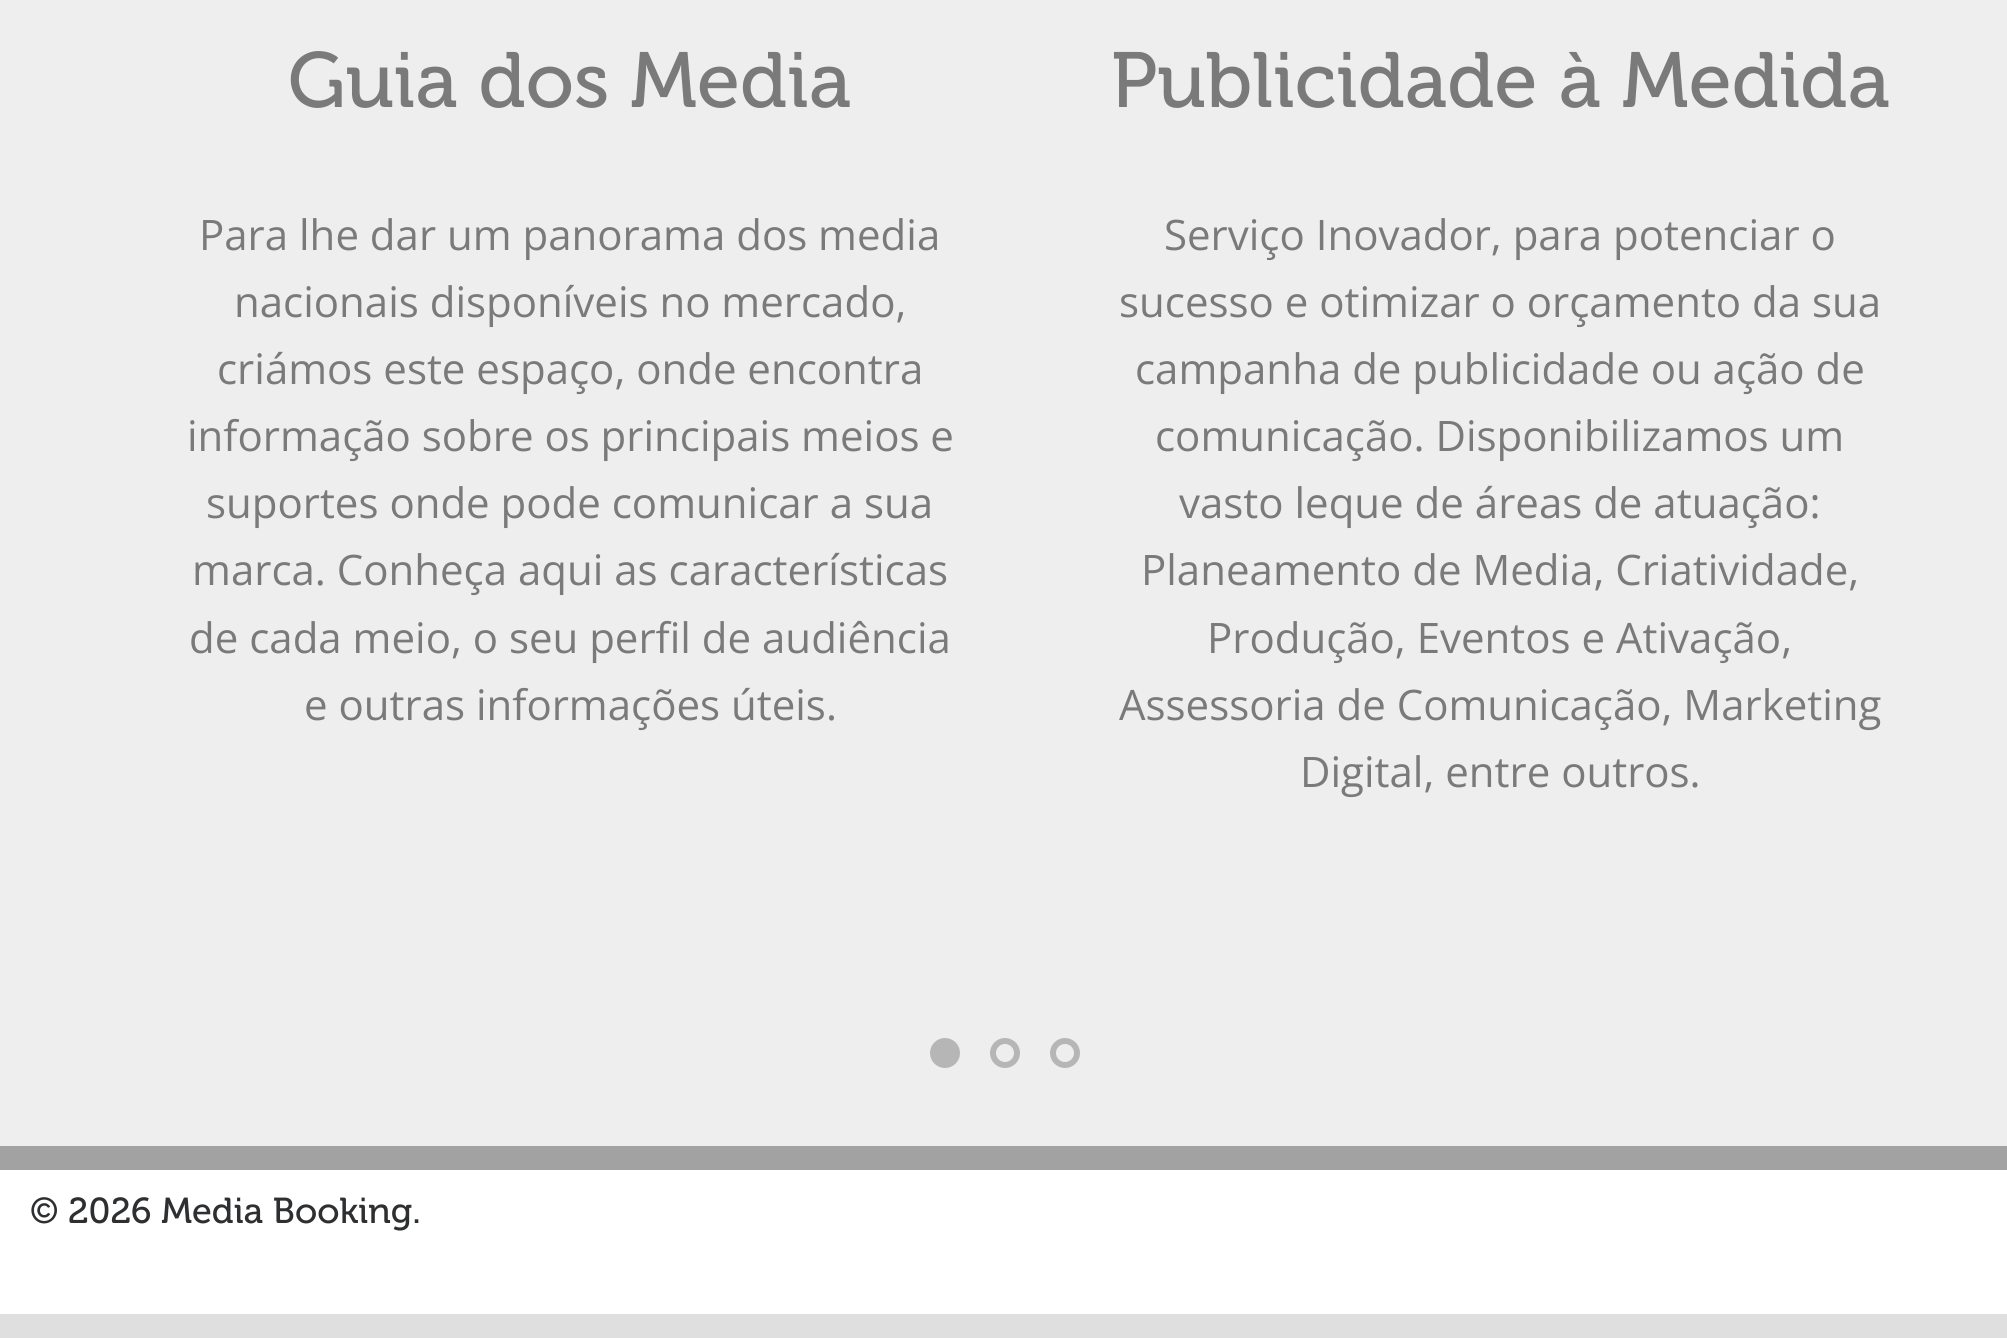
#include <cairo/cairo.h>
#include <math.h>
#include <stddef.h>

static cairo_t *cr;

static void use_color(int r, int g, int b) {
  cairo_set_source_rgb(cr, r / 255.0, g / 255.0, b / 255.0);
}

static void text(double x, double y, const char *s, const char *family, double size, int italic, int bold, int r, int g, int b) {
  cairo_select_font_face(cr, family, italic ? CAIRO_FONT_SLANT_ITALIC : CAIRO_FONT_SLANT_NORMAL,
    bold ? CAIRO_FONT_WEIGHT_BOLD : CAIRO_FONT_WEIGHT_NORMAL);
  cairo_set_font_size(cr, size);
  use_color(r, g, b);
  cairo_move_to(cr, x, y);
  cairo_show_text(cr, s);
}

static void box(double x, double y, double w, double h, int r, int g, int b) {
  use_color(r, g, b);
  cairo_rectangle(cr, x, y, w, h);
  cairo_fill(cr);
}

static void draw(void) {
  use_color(255, 255, 255);
  cairo_paint(cr);
  box(0, 1314, 2007, 24, 223, 223, 223);
  box(0, 0, 2007, 1146, 238, 238, 238);
  box(0, 1146, 2007, 24, 162, 162, 162);
  use_color(182, 182, 182);
  cairo_arc(cr, 945, 1053, 12, 0, 2 * M_PI);
  cairo_fill_preserve(cr);
  cairo_set_line_width(cr, 6);
  cairo_stroke(cr);
  cairo_arc(cr, 1005, 1053, 12, 0, 2 * M_PI);
  cairo_stroke(cr);
  cairo_arc(cr, 1065, 1053, 12, 0, 2 * M_PI);
  cairo_stroke(cr);
  text(288, 107, "Guia dos Media", "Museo", 78, 0, 0, 122, 122, 122);
  text(199, 250, "Para lhe dar um panorama dos media", "Open Sans", 42, 0, 0, 122, 122, 122);
  text(234, 317, "nacionais disponíveis no mercado,", "Open Sans", 42, 0, 0, 122, 122, 122);
  text(217, 384, "criámos este espaço, onde encontra", "Open Sans", 42, 0, 0, 122, 122, 122);
  text(187, 451, "informação sobre os principais meios e", "Open Sans", 42, 0, 0, 122, 122, 122);
  text(206, 518, "suportes onde pode comunicar a sua", "Open Sans", 42, 0, 0, 122, 122, 122);
  text(192, 585, "marca. Conheça aqui as características", "Open Sans", 42, 0, 0, 122, 122, 122);
  text(189, 653, "de cada meio, o seu perfil de audiência", "Open Sans", 42, 0, 0, 122, 122, 122);
  text(304, 720, "e outras informações úteis.", "Open Sans", 42, 0, 0, 122, 122, 122);
  text(1111, 107, "Publicidade à Medida", "Museo", 78, 0, 0, 122, 122, 122);
  text(1164, 250, "Serviço Inovador, para potenciar o", "Open Sans", 42, 0, 0, 122, 122, 122);
  text(1119, 317, "sucesso e otimizar o orçamento da sua", "Open Sans", 42, 0, 0, 122, 122, 122);
  text(1135, 384, "campanha de publicidade ou ação de", "Open Sans", 42, 0, 0, 122, 122, 122);
  text(1155, 451, "comunicação. Disponibilizamos um", "Open Sans", 42, 0, 0, 122, 122, 122);
  text(1179, 518, "vasto leque de áreas de atuação:", "Open Sans", 42, 0, 0, 122, 122, 122);
  text(1141, 585, "Planeamento de Media, Criatividade,", "Open Sans", 42, 0, 0, 122, 122, 122);
  text(1207, 653, "Produção, Eventos e Ativação,", "Open Sans", 42, 0, 0, 122, 122, 122);
  text(1119, 720, "Assessoria de Comunicação, Marketing", "Open Sans", 42, 0, 0, 122, 122, 122);
  text(1300, 787, "Digital, entre outros.", "Open Sans", 42, 0, 0, 122, 122, 122);
  text(30, 1223, "© 2026 Media Booking.", "Museo", 36, 0, 0, 45, 47, 49);
}

int main(void) {
  cairo_surface_t *surface = cairo_image_surface_create(CAIRO_FORMAT_RGB24, 2007, 1338);
  cr = cairo_create(surface);
  cairo_font_options_t *options = cairo_font_options_create();
  cairo_font_options_set_hint_metrics(options, CAIRO_HINT_METRICS_OFF);
  cairo_font_options_set_hint_style(options, CAIRO_HINT_STYLE_NONE);
  cairo_set_font_options(cr, options);
  cairo_set_miter_limit(cr, 4);
  draw();
  cairo_surface_write_to_png(surface, "out.png");
  cairo_font_options_destroy(options);
  cairo_destroy(cr);
  cairo_surface_destroy(surface);
  return 0;
}
